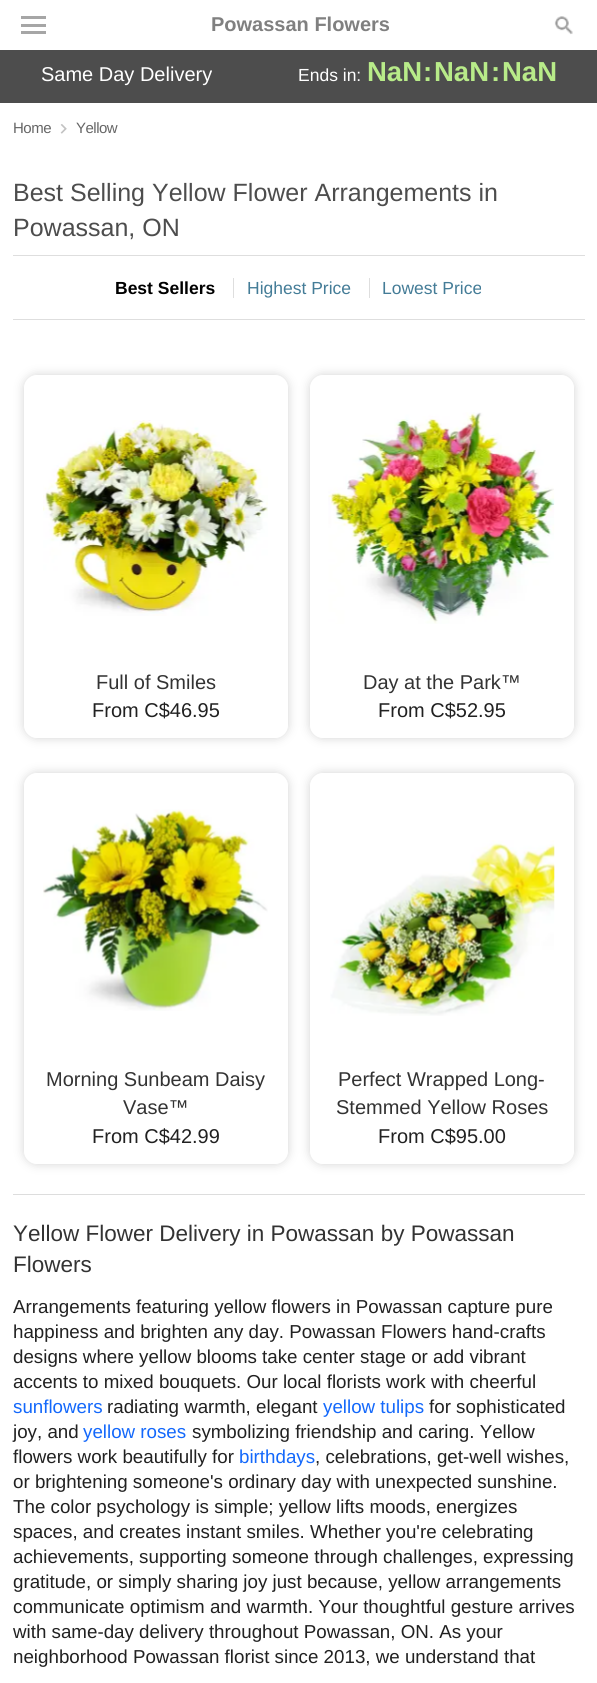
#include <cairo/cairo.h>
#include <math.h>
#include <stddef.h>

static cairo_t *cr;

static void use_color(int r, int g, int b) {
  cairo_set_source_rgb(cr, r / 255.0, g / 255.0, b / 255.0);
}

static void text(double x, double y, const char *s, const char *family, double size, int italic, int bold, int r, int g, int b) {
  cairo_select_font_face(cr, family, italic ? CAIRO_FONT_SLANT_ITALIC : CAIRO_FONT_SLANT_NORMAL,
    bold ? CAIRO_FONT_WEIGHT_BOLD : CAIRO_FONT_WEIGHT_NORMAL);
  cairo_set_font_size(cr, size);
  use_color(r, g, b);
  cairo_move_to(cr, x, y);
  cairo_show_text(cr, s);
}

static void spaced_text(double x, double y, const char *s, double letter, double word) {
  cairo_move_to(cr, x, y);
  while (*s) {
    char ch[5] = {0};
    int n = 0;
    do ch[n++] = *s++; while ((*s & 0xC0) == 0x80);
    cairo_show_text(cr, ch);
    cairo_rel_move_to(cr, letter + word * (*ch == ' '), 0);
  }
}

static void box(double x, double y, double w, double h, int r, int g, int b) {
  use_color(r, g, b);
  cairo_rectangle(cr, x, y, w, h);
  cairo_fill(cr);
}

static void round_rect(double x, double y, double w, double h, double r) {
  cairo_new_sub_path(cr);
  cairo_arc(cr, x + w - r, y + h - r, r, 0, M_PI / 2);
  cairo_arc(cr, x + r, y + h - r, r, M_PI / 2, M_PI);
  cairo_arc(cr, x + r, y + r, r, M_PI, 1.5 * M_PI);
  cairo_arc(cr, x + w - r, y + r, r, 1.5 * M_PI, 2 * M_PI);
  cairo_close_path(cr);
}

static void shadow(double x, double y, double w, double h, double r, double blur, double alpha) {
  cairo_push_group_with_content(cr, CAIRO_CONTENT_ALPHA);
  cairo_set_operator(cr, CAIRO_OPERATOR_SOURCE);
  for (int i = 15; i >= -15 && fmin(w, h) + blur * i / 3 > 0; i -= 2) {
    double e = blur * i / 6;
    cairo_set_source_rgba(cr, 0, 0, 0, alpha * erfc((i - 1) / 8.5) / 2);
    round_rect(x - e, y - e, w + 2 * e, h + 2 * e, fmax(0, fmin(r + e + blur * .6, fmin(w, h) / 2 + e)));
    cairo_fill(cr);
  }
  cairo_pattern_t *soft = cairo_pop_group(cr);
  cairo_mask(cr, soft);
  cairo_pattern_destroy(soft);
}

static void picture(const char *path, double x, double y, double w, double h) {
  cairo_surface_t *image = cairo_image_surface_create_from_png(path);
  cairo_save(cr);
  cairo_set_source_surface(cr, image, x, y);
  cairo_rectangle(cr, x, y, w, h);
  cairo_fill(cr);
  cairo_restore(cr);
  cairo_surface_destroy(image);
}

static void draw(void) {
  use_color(255, 255, 255);
  cairo_paint(cr);
  box(21, 24, 25, 3, 166, 166, 166);
  box(21, 16, 25, 3, 166, 166, 166);
  box(21, 31, 25, 3, 166, 166, 166);
  picture("img_01.png", 554, 16, 19, 19);
  box(0, 50, 597, 53, 77, 77, 77);
  picture("img_02.png", 60, 124, 7, 10);
  box(13, 255, 572, 1, 222, 222, 222);
  box(13, 319, 572, 1, 222, 222, 222);
  box(233, 278, 1, 20, 222, 222, 222);
  box(369, 278, 1, 20, 222, 222, 222);
  cairo_save(cr);
  cairo_set_fill_rule(cr, CAIRO_FILL_RULE_EVEN_ODD);
  cairo_new_path(cr);
  cairo_move_to(cr, 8, 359);
  cairo_line_to(cr, 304, 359);
  cairo_line_to(cr, 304, 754);
  cairo_line_to(cr, 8, 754);
  cairo_close_path(cr);
  cairo_move_to(cr, 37, 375);
  cairo_line_to(cr, 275, 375);
  cairo_curve_to(cr, 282, 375, 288, 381, 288, 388);
  cairo_line_to(cr, 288, 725);
  cairo_curve_to(cr, 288, 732, 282, 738, 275, 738);
  cairo_line_to(cr, 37, 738);
  cairo_curve_to(cr, 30, 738, 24, 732, 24, 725);
  cairo_line_to(cr, 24, 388);
  cairo_curve_to(cr, 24, 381, 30, 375, 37, 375);
  cairo_close_path(cr);
  cairo_clip(cr);
  use_color(211, 211, 211);
  shadow(24, 375, 264, 363, 13, 5, 1);
  cairo_restore(cr);
  picture("img_03.png", 43, 420, 225, 196);
  cairo_save(cr);
  cairo_set_fill_rule(cr, CAIRO_FILL_RULE_EVEN_ODD);
  cairo_new_path(cr);
  cairo_move_to(cr, 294, 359);
  cairo_line_to(cr, 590, 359);
  cairo_line_to(cr, 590, 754);
  cairo_line_to(cr, 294, 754);
  cairo_close_path(cr);
  cairo_move_to(cr, 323, 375);
  cairo_line_to(cr, 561, 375);
  cairo_curve_to(cr, 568, 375, 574, 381, 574, 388);
  cairo_line_to(cr, 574, 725);
  cairo_curve_to(cr, 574, 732, 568, 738, 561, 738);
  cairo_line_to(cr, 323, 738);
  cairo_curve_to(cr, 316, 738, 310, 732, 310, 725);
  cairo_line_to(cr, 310, 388);
  cairo_curve_to(cr, 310, 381, 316, 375, 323, 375);
  cairo_close_path(cr);
  cairo_clip(cr);
  use_color(211, 211, 211);
  shadow(310, 375, 264, 363, 13, 5, 1);
  cairo_restore(cr);
  picture("img_04.png", 328, 412, 227, 212);
  cairo_save(cr);
  cairo_set_fill_rule(cr, CAIRO_FILL_RULE_EVEN_ODD);
  cairo_new_path(cr);
  cairo_move_to(cr, 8, 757);
  cairo_line_to(cr, 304, 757);
  cairo_line_to(cr, 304, 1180);
  cairo_line_to(cr, 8, 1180);
  cairo_close_path(cr);
  cairo_move_to(cr, 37, 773);
  cairo_line_to(cr, 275, 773);
  cairo_curve_to(cr, 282, 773, 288, 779, 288, 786);
  cairo_line_to(cr, 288, 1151);
  cairo_curve_to(cr, 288, 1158, 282, 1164, 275, 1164);
  cairo_line_to(cr, 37, 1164);
  cairo_curve_to(cr, 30, 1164, 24, 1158, 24, 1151);
  cairo_line_to(cr, 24, 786);
  cairo_curve_to(cr, 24, 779, 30, 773, 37, 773);
  cairo_close_path(cr);
  cairo_clip(cr);
  use_color(211, 211, 211);
  shadow(24, 773, 264, 391, 13, 5, 1);
  cairo_restore(cr);
  picture("img_05.png", 43, 809, 225, 202);
  cairo_save(cr);
  cairo_set_fill_rule(cr, CAIRO_FILL_RULE_EVEN_ODD);
  cairo_new_path(cr);
  cairo_move_to(cr, 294, 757);
  cairo_line_to(cr, 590, 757);
  cairo_line_to(cr, 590, 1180);
  cairo_line_to(cr, 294, 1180);
  cairo_close_path(cr);
  cairo_move_to(cr, 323, 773);
  cairo_line_to(cr, 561, 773);
  cairo_curve_to(cr, 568, 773, 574, 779, 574, 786);
  cairo_line_to(cr, 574, 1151);
  cairo_curve_to(cr, 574, 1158, 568, 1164, 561, 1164);
  cairo_line_to(cr, 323, 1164);
  cairo_curve_to(cr, 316, 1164, 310, 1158, 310, 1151);
  cairo_line_to(cr, 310, 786);
  cairo_curve_to(cr, 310, 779, 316, 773, 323, 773);
  cairo_close_path(cr);
  cairo_clip(cr);
  use_color(211, 211, 211);
  shadow(310, 773, 264, 391, 13, 5, 1);
  cairo_restore(cr);
  picture("img_06.png", 330, 840, 225, 176);
  box(13, 1194, 572, 1, 221, 221, 221);
  text(211, 31, "Powassan Flowers", "Liberation Sans", 20, 0, 1, 128, 128, 128);
  text(41, 81, "Same Day Delivery", "Liberation Sans", 20, 0, 0, 255, 255, 255);
  text(298, 81, "Ends in:", "Liberation Sans", 17.5, 0, 0, 255, 255, 255);
  text(367, 81, "NaN", "Liberation Sans", 27.5, 0, 1, 184, 235, 137);
  text(423, 81, ":", "Liberation Sans", 27.5, 0, 1, 184, 235, 137);
  text(434, 81, "NaN", "Liberation Sans", 27.5, 0, 1, 184, 235, 137);
  text(491, 81, ":", "Liberation Sans", 27.5, 0, 1, 184, 235, 137);
  text(502, 81, "NaN", "Liberation Sans", 27.5, 0, 1, 184, 235, 137);
  cairo_select_font_face(cr, "Liberation Sans", CAIRO_FONT_SLANT_NORMAL, CAIRO_FONT_WEIGHT_NORMAL);
  cairo_set_font_size(cr, 15);
  use_color(102, 102, 102);
  spaced_text(13, 133, "Home", -0.5, 0);
  spaced_text(76, 133, "Yellow", -0.5, 0);
  text(13, 201, "Best Selling Yellow Flower Arrangements in", "Liberation Sans", 25, 0, 0, 77, 77, 77);
  text(13, 236, "Powassan, ON", "Liberation Sans", 25, 0, 0, 77, 77, 77);
  text(115, 294, "Best Sellers", "Liberation Sans", 17.5, 0, 1, 0, 0, 0);
  text(247, 294, "Highest Price", "Liberation Sans", 17.5, 0, 0, 68, 124, 151);
  text(382, 294, "Lowest Price", "Liberation Sans", 17.5, 0, 0, 68, 124, 151);
  text(96, 689, "Full of Smiles", "Liberation Sans", 20, 0, 0, 51, 51, 51);
  text(92, 717, "From C$46.95", "Liberation Sans", 20, 0, 0, 33, 33, 33);
  text(363, 689, "Day at the Park™", "Liberation Sans", 20, 0, 0, 51, 51, 51);
  text(378, 717, "From C$52.95", "Liberation Sans", 20, 0, 0, 33, 33, 33);
  text(46, 1086, "Morning Sunbeam Daisy", "Liberation Sans", 20, 0, 0, 51, 51, 51);
  text(123, 1114, "Vase™", "Liberation Sans", 20, 0, 0, 51, 51, 51);
  text(92, 1143, "From C$42.99", "Liberation Sans", 20, 0, 0, 33, 33, 33);
  text(338, 1086, "Perfect Wrapped Long-", "Liberation Sans", 20, 0, 0, 51, 51, 51);
  text(336, 1114, "Stemmed Yellow Roses", "Liberation Sans", 20, 0, 0, 51, 51, 51);
  text(378, 1143, "From C$95.00", "Liberation Sans", 20, 0, 0, 33, 33, 33);
  text(13, 1241, "Yellow Flower Delivery in Powassan by Powassan", "Liberation Sans", 22.5, 0, 0, 51, 51, 51);
  text(13, 1272, "Flowers", "Liberation Sans", 22.5, 0, 0, 51, 51, 51);
  text(13, 1313, "Arrangements featuring yellow flowers in Powassan capture pure", "Liberation Sans", 18.75, 0, 0, 33, 33, 33);
  text(13, 1338, "happiness and brighten any day. Powassan Flowers hand-crafts", "Liberation Sans", 18.75, 0, 0, 33, 33, 33);
  text(13, 1363, "designs where yellow blooms take center stage or add vibrant", "Liberation Sans", 18.75, 0, 0, 33, 33, 33);
  text(13, 1388, "accents to mixed bouquets. Our local florists work with cheerful", "Liberation Sans", 18.75, 0, 0, 33, 33, 33);
  text(13, 1413, "sunflowers", "Liberation Sans", 18.75, 0, 0, 19, 104, 251);
  text(107, 1413, "radiating warmth, elegant", "Liberation Sans", 18.75, 0, 0, 33, 33, 33);
  text(323, 1413, "yellow tulips", "Liberation Sans", 18.75, 0, 0, 19, 104, 251);
  text(429, 1413, "for sophisticated", "Liberation Sans", 18.75, 0, 0, 33, 33, 33);
  text(13, 1438, "joy, and", "Liberation Sans", 18.75, 0, 0, 33, 33, 33);
  text(83, 1438, "yellow roses", "Liberation Sans", 18.75, 0, 0, 19, 104, 251);
  text(192, 1438, "symbolizing friendship and caring. Yellow", "Liberation Sans", 18.75, 0, 0, 33, 33, 33);
  text(13, 1463, "flowers work beautifully for", "Liberation Sans", 18.75, 0, 0, 33, 33, 33);
  text(239, 1463, "birthdays", "Liberation Sans", 18.75, 0, 0, 19, 104, 251);
  text(315, 1463, ", celebrations, get-well wishes,", "Liberation Sans", 18.75, 0, 0, 33, 33, 33);
  text(13, 1488, "or brightening someone's ordinary day with unexpected sunshine.", "Liberation Sans", 18.75, 0, 0, 33, 33, 33);
  text(13, 1513, "The color psychology is simple; yellow lifts moods, energizes", "Liberation Sans", 18.75, 0, 0, 33, 33, 33);
  text(13, 1538, "spaces, and creates instant smiles. Whether you're celebrating", "Liberation Sans", 18.75, 0, 0, 33, 33, 33);
  text(13, 1563, "achievements, supporting someone through challenges, expressing", "Liberation Sans", 18.75, 0, 0, 33, 33, 33);
  text(13, 1588, "gratitude, or simply sharing joy just because, yellow arrangements", "Liberation Sans", 18.75, 0, 0, 33, 33, 33);
  text(13, 1613, "communicate optimism and warmth. Your thoughtful gesture arrives", "Liberation Sans", 18.75, 0, 0, 33, 33, 33);
  text(13, 1638, "with same-day delivery throughout Powassan, ON. As your", "Liberation Sans", 18.75, 0, 0, 33, 33, 33);
  text(13, 1663, "neighborhood Powassan florist since 2013, we understand that", "Liberation Sans", 18.75, 0, 0, 33, 33, 33);
}

int main(void) {
  cairo_surface_t *surface = cairo_image_surface_create(CAIRO_FORMAT_RGB24, 597, 1683);
  cr = cairo_create(surface);
  cairo_font_options_t *options = cairo_font_options_create();
  cairo_font_options_set_hint_metrics(options, CAIRO_HINT_METRICS_OFF);
  cairo_font_options_set_hint_style(options, CAIRO_HINT_STYLE_NONE);
  cairo_set_font_options(cr, options);
  cairo_set_miter_limit(cr, 4);
  draw();
  cairo_surface_write_to_png(surface, "out.png");
  cairo_font_options_destroy(options);
  cairo_destroy(cr);
  cairo_surface_destroy(surface);
  return 0;
}
